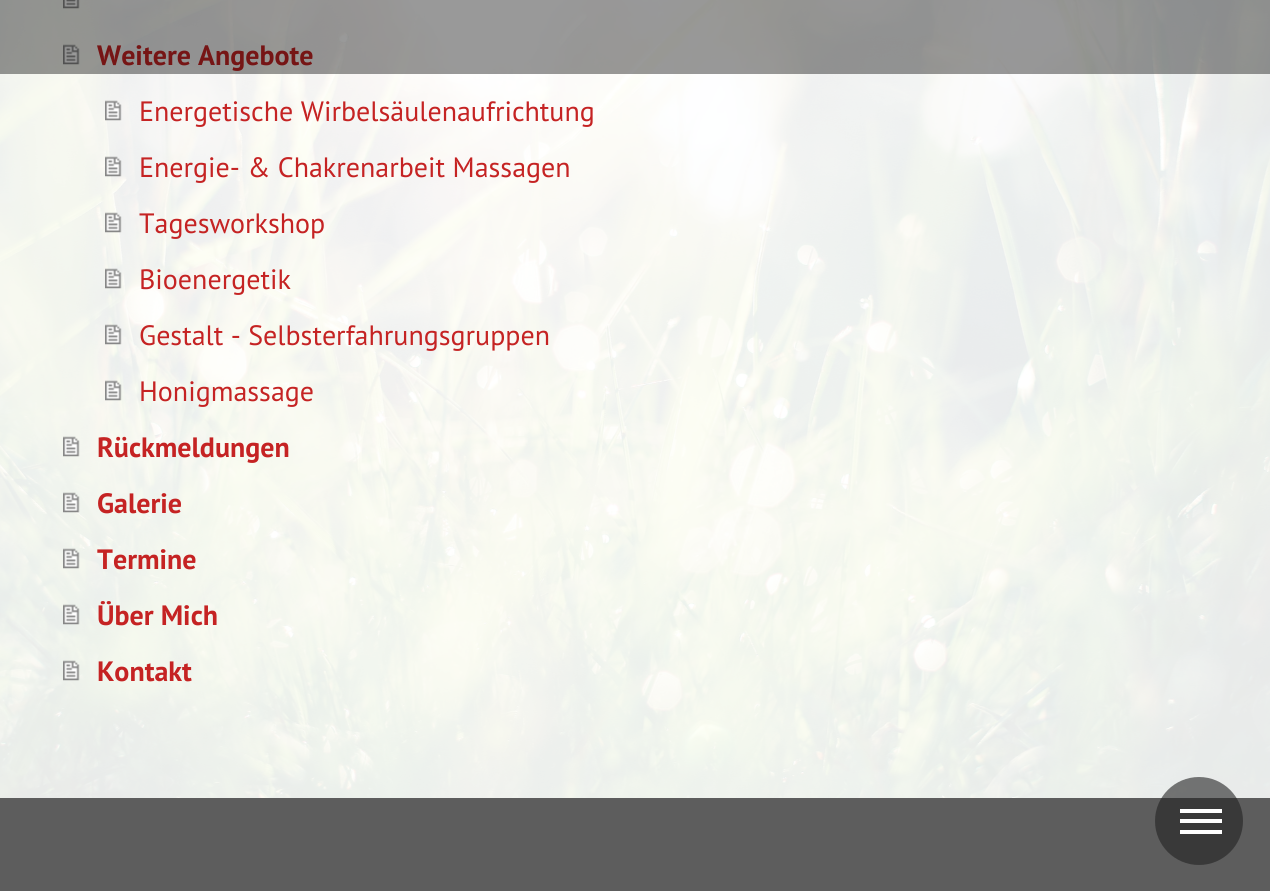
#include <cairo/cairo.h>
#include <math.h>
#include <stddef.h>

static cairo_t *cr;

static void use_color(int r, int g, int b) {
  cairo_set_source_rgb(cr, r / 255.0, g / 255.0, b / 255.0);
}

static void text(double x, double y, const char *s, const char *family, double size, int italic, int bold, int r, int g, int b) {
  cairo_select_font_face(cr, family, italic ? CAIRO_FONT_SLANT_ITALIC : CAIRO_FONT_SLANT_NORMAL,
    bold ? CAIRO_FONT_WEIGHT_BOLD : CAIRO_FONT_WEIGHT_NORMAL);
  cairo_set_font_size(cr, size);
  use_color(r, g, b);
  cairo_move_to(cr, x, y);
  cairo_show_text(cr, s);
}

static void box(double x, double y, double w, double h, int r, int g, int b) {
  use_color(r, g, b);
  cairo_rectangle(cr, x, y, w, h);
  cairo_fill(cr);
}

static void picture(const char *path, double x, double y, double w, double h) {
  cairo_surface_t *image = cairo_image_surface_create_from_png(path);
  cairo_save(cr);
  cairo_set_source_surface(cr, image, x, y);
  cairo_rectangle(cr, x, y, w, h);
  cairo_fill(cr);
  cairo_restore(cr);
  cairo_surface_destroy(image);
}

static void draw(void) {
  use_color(255, 255, 255);
  cairo_paint(cr);
  picture("img_01.png", 0, 0, 1270, 798);
  cairo_set_source_rgba(cr, 1, 1, 1, 0.9);
  cairo_rectangle(cr, 0, 0, 1270, 798);
  cairo_fill(cr);
  picture("img_02.png", 63, 0, 17, 9);
  picture("img_03.png", 63, 44, 17, 21);
  picture("img_04.png", 105, 100, 17, 21);
  picture("img_05.png", 105, 156, 17, 21);
  picture("img_06.png", 105, 212, 17, 21);
  picture("img_07.png", 105, 268, 17, 21);
  picture("img_08.png", 105, 324, 17, 21);
  picture("img_09.png", 105, 380, 17, 21);
  picture("img_10.png", 63, 436, 17, 21);
  picture("img_11.png", 63, 492, 17, 21);
  picture("img_12.png", 63, 548, 17, 21);
  picture("img_13.png", 63, 604, 17, 21);
  picture("img_14.png", 63, 660, 17, 21);
  box(0, 798, 1270, 93, 93, 93, 93);
  cairo_set_source_rgba(cr, 0.133, 0.133, 0.133, 0.6);
  cairo_arc(cr, 1199, 821, 44, 0, 2 * M_PI);
  cairo_fill(cr);
  box(1180, 819, 42, 4, 255, 255, 255);
  box(1180, 809, 42, 4, 255, 255, 255);
  box(1180, 830, 42, 4, 255, 255, 255);
  text(97, 65, "Weitere Angebote", "PT Sans", 28, 0, 1, 197, 35, 35);
  cairo_set_source_rgba(cr, 0, 0, 0, 0.4);
  cairo_rectangle(cr, 0, 0, 1270, 74);
  cairo_fill(cr);
  text(139, 121, "Energetische Wirbelsäulenaufrichtung", "PT Sans", 28, 0, 0, 197, 35, 35);
  text(139, 177, "Energie- & Chakrenarbeit Massagen", "PT Sans", 28, 0, 0, 197, 35, 35);
  text(139, 233, "Tagesworkshop", "PT Sans", 28, 0, 0, 197, 35, 35);
  text(139, 289, "Bioenergetik", "PT Sans", 28, 0, 0, 197, 35, 35);
  text(139, 345, "Gestalt - Selbsterfahrungsgruppen", "PT Sans", 28, 0, 0, 197, 35, 35);
  text(139, 401, "Honigmassage", "PT Sans", 28, 0, 0, 197, 35, 35);
  text(97, 457, "Rückmeldungen", "PT Sans", 28, 0, 1, 197, 35, 35);
  text(97, 513, "Galerie", "PT Sans", 28, 0, 1, 197, 35, 35);
  text(97, 569, "Termine", "PT Sans", 28, 0, 1, 197, 35, 35);
  text(97, 625, "Über Mich", "PT Sans", 28, 0, 1, 197, 35, 35);
  text(97, 681, "Kontakt", "PT Sans", 28, 0, 1, 197, 35, 35);
}

int main(void) {
  cairo_surface_t *surface = cairo_image_surface_create(CAIRO_FORMAT_RGB24, 1270, 891);
  cr = cairo_create(surface);
  cairo_font_options_t *options = cairo_font_options_create();
  cairo_font_options_set_hint_metrics(options, CAIRO_HINT_METRICS_OFF);
  cairo_font_options_set_hint_style(options, CAIRO_HINT_STYLE_NONE);
  cairo_set_font_options(cr, options);
  cairo_set_miter_limit(cr, 4);
  draw();
  cairo_surface_write_to_png(surface, "out.png");
  cairo_font_options_destroy(options);
  cairo_destroy(cr);
  cairo_surface_destroy(surface);
  return 0;
}
